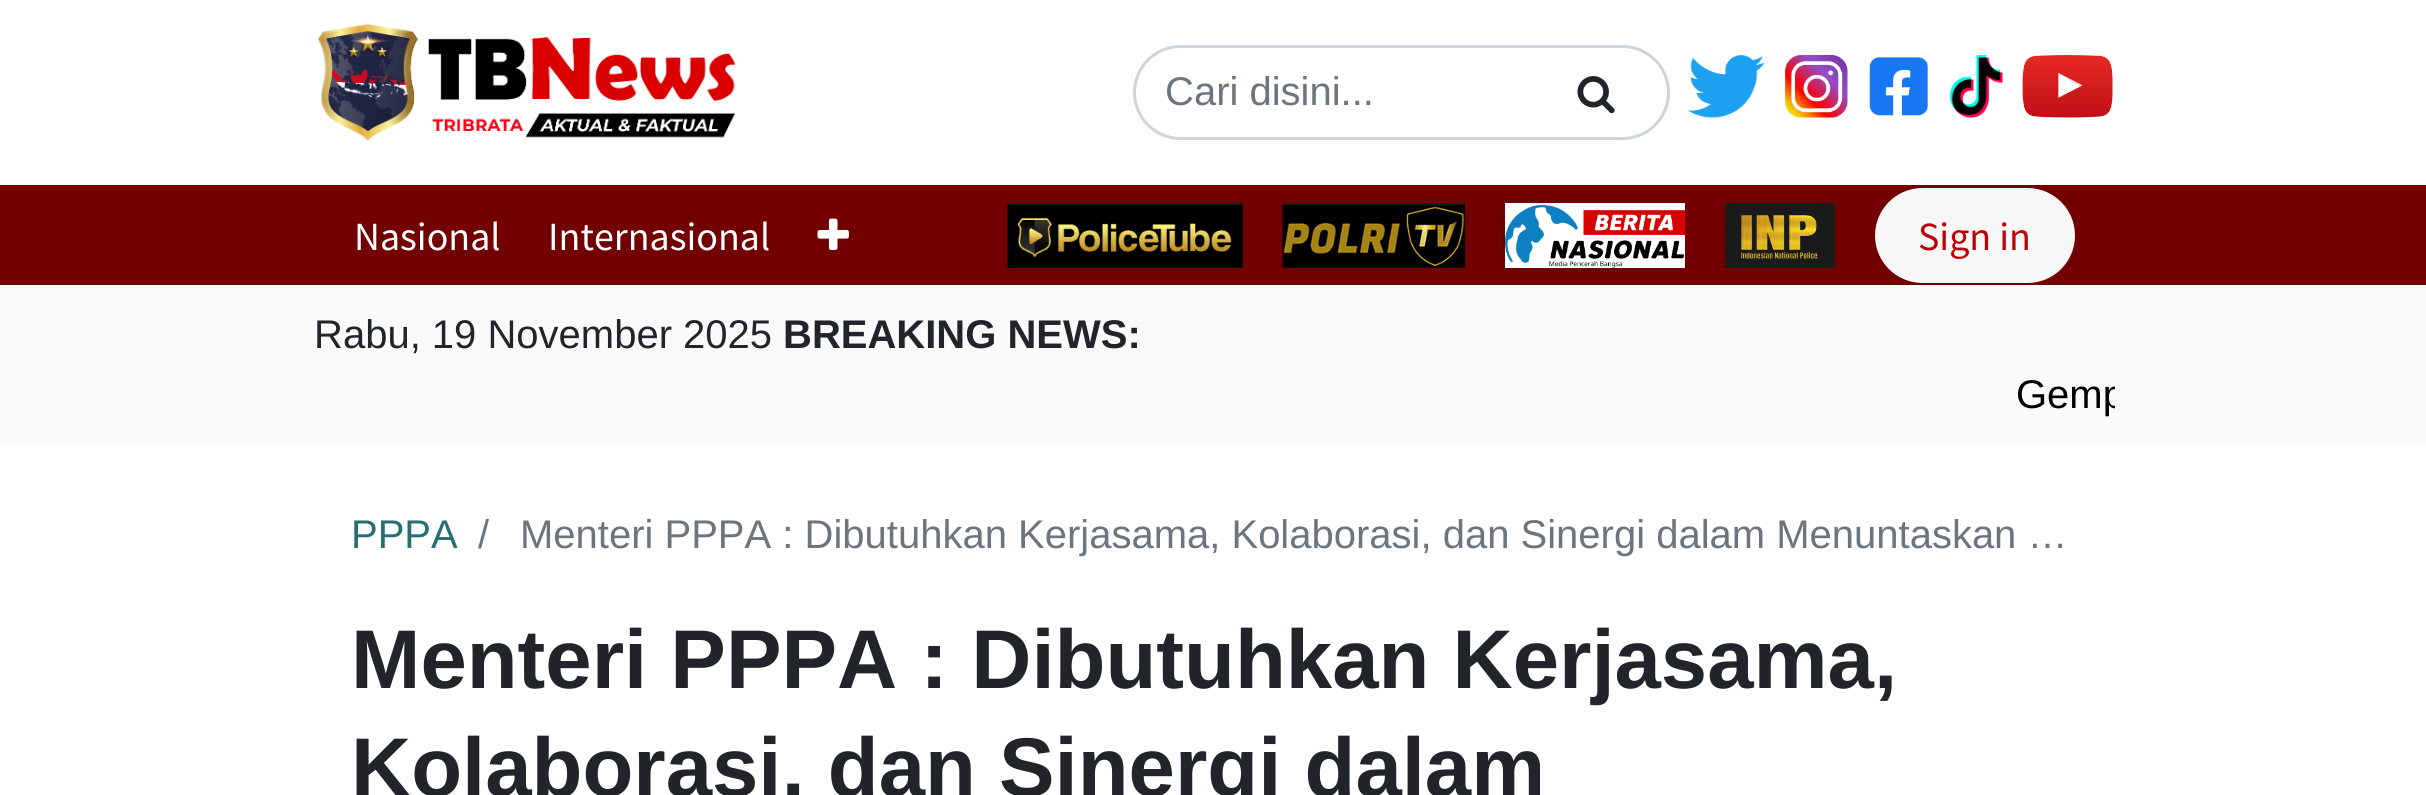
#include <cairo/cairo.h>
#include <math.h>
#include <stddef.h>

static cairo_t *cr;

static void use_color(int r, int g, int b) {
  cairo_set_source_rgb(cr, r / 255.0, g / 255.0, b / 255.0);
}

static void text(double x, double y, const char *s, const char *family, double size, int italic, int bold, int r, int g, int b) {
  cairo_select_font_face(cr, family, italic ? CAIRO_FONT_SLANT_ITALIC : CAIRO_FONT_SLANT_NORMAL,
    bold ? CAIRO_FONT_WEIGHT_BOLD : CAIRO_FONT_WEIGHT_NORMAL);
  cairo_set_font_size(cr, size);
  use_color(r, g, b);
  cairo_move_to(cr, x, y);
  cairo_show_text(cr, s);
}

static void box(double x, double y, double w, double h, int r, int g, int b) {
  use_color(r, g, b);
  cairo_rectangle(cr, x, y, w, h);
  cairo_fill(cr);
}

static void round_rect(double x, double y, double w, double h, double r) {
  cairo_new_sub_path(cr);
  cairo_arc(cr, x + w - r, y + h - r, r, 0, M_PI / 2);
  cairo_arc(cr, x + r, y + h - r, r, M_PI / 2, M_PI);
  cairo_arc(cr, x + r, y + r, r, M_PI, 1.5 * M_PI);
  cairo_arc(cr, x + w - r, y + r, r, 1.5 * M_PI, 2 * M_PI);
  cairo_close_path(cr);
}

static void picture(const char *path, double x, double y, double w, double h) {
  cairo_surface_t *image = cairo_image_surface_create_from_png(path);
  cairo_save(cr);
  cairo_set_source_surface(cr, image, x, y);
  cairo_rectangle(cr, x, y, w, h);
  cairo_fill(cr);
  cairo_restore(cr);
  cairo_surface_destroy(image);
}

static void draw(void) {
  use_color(255, 255, 255);
  cairo_paint(cr);
  picture("img_01.png", 317, 23, 419, 119);
  round_rect(1134.5, 46.5, 534, 92, 46);
  use_color(206, 212, 218);
  cairo_set_line_width(cr, 3);
  cairo_stroke(cr);
  picture("img_02.png", 1577, 76, 38, 38);
  picture("img_03.png", 1687, 55, 78, 63);
  picture("img_04.png", 1785, 55, 63, 63);
  picture("img_05.png", 1869, 57, 59, 59);
  picture("img_06.png", 1950, 55, 53, 63);
  picture("img_07.png", 2022, 55, 91, 63);
  box(0, 185, 2426, 100, 115, 0, 0);
  picture("img_08.png", 817, 218, 32, 32);
  box(1008, 203, 235, 65, 26, 26, 26);
  picture("img_09.png", 1007, 205, 236, 63);
  box(1283, 203, 182, 65, 26, 26, 26);
  picture("img_10.png", 1282, 205, 183, 63);
  box(1505, 203, 180, 65, 255, 255, 255);
  picture("img_11.png", 1505, 205, 180, 63);
  box(1725, 203, 110, 65, 26, 26, 26);
  picture("img_12.png", 1741, 215, 77, 44);
  use_color(247, 247, 247);
  round_rect(1876.5, 189.5, 197, 92, 46);
  cairo_fill_preserve(cr);
  cairo_stroke(cr);
  box(0, 285, 2426, 160, 250, 250, 250);
  text(1165, 105, "Cari disini...", "Liberation Sans", 40, 0, 0, 108, 117, 125);
  text(354, 250, "Nasional", "Source Sans Pro", 40, 0, 0, 255, 255, 255);
  text(548, 250, "Internasional", "Source Sans Pro", 40, 0, 0, 255, 255, 255);
  text(1918, 250, "Sign in", "Source Sans Pro", 40, 0, 0, 190, 1, 6);
  text(314, 348, "Rabu, 19 November 2025", "Liberation Sans", 40, 0, 0, 33, 37, 41);
  text(783, 348, "BREAKING NEWS:", "Liberation Sans", 40, 0, 1, 33, 37, 41);
  cairo_save(cr);
  cairo_rectangle(cr, 315, 365, 1800, 60);
  cairo_clip(cr);
  text(2016, 408, "Gemp", "Liberation Sans", 40, 0, 0, 0, 0, 0);
  cairo_restore(cr);
  text(351, 548, "PPPA", "Liberation Sans", 40, 0, 0, 39, 110, 114);
  text(478, 548, "/", "Liberation Sans", 40, 0, 0, 108, 117, 125);
  text(520, 548, "Menteri PPPA : Dibutuhkan Kerjasama, Kolaborasi, dan Sinergi dalam Menuntaskan …", "Liberation Sans", 40, 0, 0, 108, 117, 125);
  text(351, 688, "Menteri PPPA : Dibutuhkan Kerjasama,", "Liberation Sans", 83.3, 0, 1, 33, 37, 41);
  text(351, 796, "Kolaborasi, dan Sinergi dalam", "Liberation Sans", 83.3, 0, 1, 33, 37, 41);
}

int main(void) {
  cairo_surface_t *surface = cairo_image_surface_create(CAIRO_FORMAT_RGB24, 2426, 795);
  cr = cairo_create(surface);
  cairo_font_options_t *options = cairo_font_options_create();
  cairo_font_options_set_hint_metrics(options, CAIRO_HINT_METRICS_OFF);
  cairo_font_options_set_hint_style(options, CAIRO_HINT_STYLE_NONE);
  cairo_set_font_options(cr, options);
  cairo_set_miter_limit(cr, 4);
  draw();
  cairo_surface_write_to_png(surface, "out.png");
  cairo_font_options_destroy(options);
  cairo_destroy(cr);
  cairo_surface_destroy(surface);
  return 0;
}
